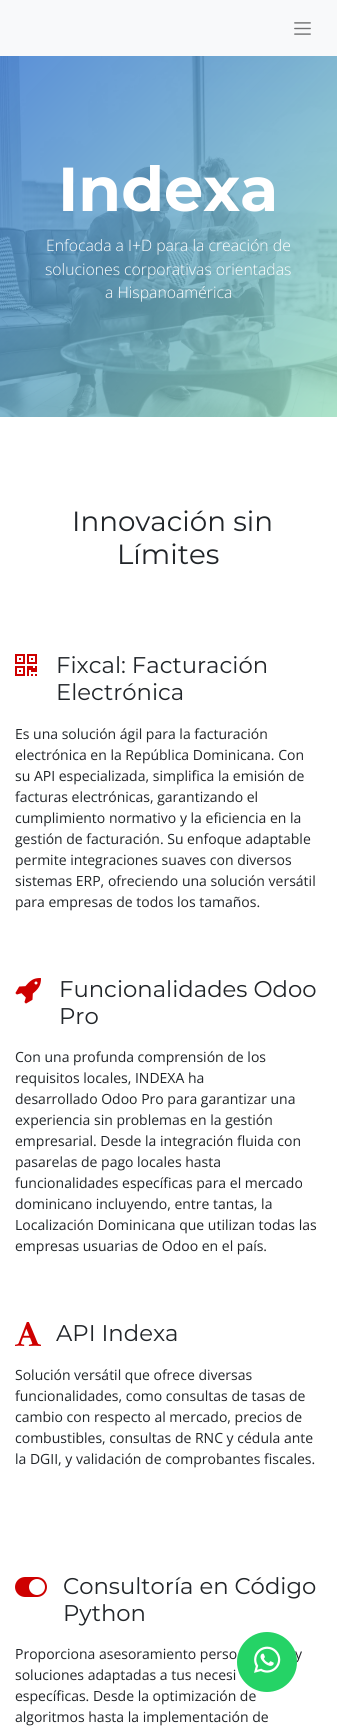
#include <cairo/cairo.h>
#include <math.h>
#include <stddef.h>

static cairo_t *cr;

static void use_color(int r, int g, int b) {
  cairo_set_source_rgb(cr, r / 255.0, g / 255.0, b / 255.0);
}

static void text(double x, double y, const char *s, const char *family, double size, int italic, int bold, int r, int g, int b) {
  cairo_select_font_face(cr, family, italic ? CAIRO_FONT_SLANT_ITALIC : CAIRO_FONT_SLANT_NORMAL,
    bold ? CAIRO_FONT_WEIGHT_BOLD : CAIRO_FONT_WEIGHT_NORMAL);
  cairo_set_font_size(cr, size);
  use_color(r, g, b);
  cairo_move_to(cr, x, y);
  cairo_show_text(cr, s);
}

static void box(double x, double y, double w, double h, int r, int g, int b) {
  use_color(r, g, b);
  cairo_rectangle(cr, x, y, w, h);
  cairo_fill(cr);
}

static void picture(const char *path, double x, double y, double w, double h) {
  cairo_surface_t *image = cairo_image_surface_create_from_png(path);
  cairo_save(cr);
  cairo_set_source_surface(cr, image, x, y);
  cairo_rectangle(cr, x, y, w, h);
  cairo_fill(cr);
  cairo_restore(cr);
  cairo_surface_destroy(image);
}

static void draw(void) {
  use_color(255, 255, 255);
  cairo_paint(cr);
  box(0, 0, 337, 56, 248, 249, 250);
  picture("img_01.png", 294, 22, 17, 13);
  picture("img_02.png", 0, 56, 337, 361);
  picture("img_03.png", 15, 654, 22, 22);
  picture("img_04.png", 15, 978, 26, 26);
  picture("img_05.png", 15, 1322, 26, 24);
  picture("img_06.png", 15, 1577, 32, 20);
  text(58, 211, "Indexa", "Montserrat", 62, 0, 1, 255, 255, 255);
  text(46, 251, "Enfocada a I+D para la creación de", "Open Sans Light", 15.75, 0, 0, 255, 255, 255);
  text(45, 275, "soluciones corporativas orientadas", "Open Sans Light", 15.75, 0, 0, 255, 255, 255);
  text(105, 298, "a Hispanoamérica", "Open Sans Light", 15.75, 0, 0, 255, 255, 255);
  text(72, 531, "Innovación sin", "Montserrat", 27.75, 0, 0, 33, 37, 41);
  text(117, 564, "Límites", "Montserrat", 27.75, 0, 0, 33, 37, 41);
  text(56, 673, "Fixcal: Facturación", "Montserrat", 22.75, 0, 0, 33, 37, 41);
  text(56, 700, "Electrónica", "Montserrat", 22.75, 0, 0, 33, 37, 41);
  text(15, 739, "Es una solución ágil para la facturación", "Open Sans", 14, 0, 0, 33, 37, 41);
  text(15, 760, "electrónica en la República Dominicana. Con", "Open Sans", 14, 0, 0, 33, 37, 41);
  text(15, 781, "su API especializada, simplifica la emisión de", "Open Sans", 14, 0, 0, 33, 37, 41);
  text(15, 802, "facturas electrónicas, garantizando el", "Open Sans", 14, 0, 0, 33, 37, 41);
  text(15, 823, "cumplimiento normativo y la eficiencia en la", "Open Sans", 14, 0, 0, 33, 37, 41);
  text(15, 844, "gestión de facturación. Su enfoque adaptable", "Open Sans", 14, 0, 0, 33, 37, 41);
  text(15, 865, "permite integraciones suaves con diversos", "Open Sans", 14, 0, 0, 33, 37, 41);
  text(15, 886, "sistemas ERP, ofreciendo una solución versátil", "Open Sans", 14, 0, 0, 33, 37, 41);
  text(15, 907, "para empresas de todos los tamaños.", "Open Sans", 14, 0, 0, 33, 37, 41);
  text(59, 997, "Funcionalidades Odoo", "Montserrat", 22.75, 0, 0, 33, 37, 41);
  text(59, 1024, "Pro", "Montserrat", 22.75, 0, 0, 33, 37, 41);
  text(15, 1062, "Con una profunda comprensión de los", "Open Sans", 14, 0, 0, 33, 37, 41);
  text(15, 1083, "requisitos locales, INDEXA ha", "Open Sans", 14, 0, 0, 33, 37, 41);
  text(15, 1104, "desarrollado Odoo Pro para garantizar una", "Open Sans", 14, 0, 0, 33, 37, 41);
  text(15, 1125, "experiencia sin problemas en la gestión", "Open Sans", 14, 0, 0, 33, 37, 41);
  text(15, 1146, "empresarial. Desde la integración fluida con", "Open Sans", 14, 0, 0, 33, 37, 41);
  text(15, 1167, "pasarelas de pago locales hasta", "Open Sans", 14, 0, 0, 33, 37, 41);
  text(15, 1188, "funcionalidades específicas para el mercado", "Open Sans", 14, 0, 0, 33, 37, 41);
  text(15, 1209, "dominicano incluyendo, entre tantas, la", "Open Sans", 14, 0, 0, 33, 37, 41);
  text(15, 1230, "Localización Dominicana que utilizan todas las", "Open Sans", 14, 0, 0, 33, 37, 41);
  text(15, 1251, "empresas usuarias de Odoo en el país.", "Open Sans", 14, 0, 0, 33, 37, 41);
  text(56, 1341, "API Indexa", "Montserrat", 22.75, 0, 0, 33, 37, 41);
  text(15, 1380, "Solución versátil que ofrece diversas", "Open Sans", 14, 0, 0, 33, 37, 41);
  text(15, 1401, "funcionalidades, como consultas de tasas de", "Open Sans", 14, 0, 0, 33, 37, 41);
  text(15, 1422, "cambio con respecto al mercado, precios de", "Open Sans", 14, 0, 0, 33, 37, 41);
  text(15, 1443, "combustibles, consultas de RNC y cédula ante", "Open Sans", 14, 0, 0, 33, 37, 41);
  text(15, 1464, "la DGII, y validación de comprobantes fiscales.", "Open Sans", 14, 0, 0, 33, 37, 41);
  text(63, 1594, "Consultoría en Código", "Montserrat", 22.75, 0, 0, 33, 37, 41);
  text(63, 1621, "Python", "Montserrat", 22.75, 0, 0, 33, 37, 41);
  text(15, 1659, "Proporciona asesoramiento perso", "Open Sans", 14, 0, 0, 33, 37, 41);
  text(295, 1659, "y", "Open Sans", 14, 0, 0, 33, 37, 41);
  text(15, 1680, "soluciones adaptadas a tus necesi", "Open Sans", 14, 0, 0, 33, 37, 41);
  text(15, 1701, "específicas. Desde la optimización de", "Open Sans", 14, 0, 0, 33, 37, 41);
  text(15, 1722, "algoritmos hasta la implementación de", "Open Sans", 14, 0, 0, 33, 37, 41);
  use_color(37, 211, 102);
  cairo_new_path(cr);
  cairo_arc(cr, 267, 1662, 30, 0, 2 * M_PI);
  cairo_fill(cr);
  picture("img_07.png", 254, 1646, 27, 27);
}

int main(void) {
  cairo_surface_t *surface = cairo_image_surface_create(CAIRO_FORMAT_RGB24, 337, 1732);
  cr = cairo_create(surface);
  cairo_font_options_t *options = cairo_font_options_create();
  cairo_font_options_set_hint_metrics(options, CAIRO_HINT_METRICS_OFF);
  cairo_font_options_set_hint_style(options, CAIRO_HINT_STYLE_NONE);
  cairo_set_font_options(cr, options);
  cairo_set_miter_limit(cr, 4);
  draw();
  cairo_surface_write_to_png(surface, "out.png");
  cairo_font_options_destroy(options);
  cairo_destroy(cr);
  cairo_surface_destroy(surface);
  return 0;
}
